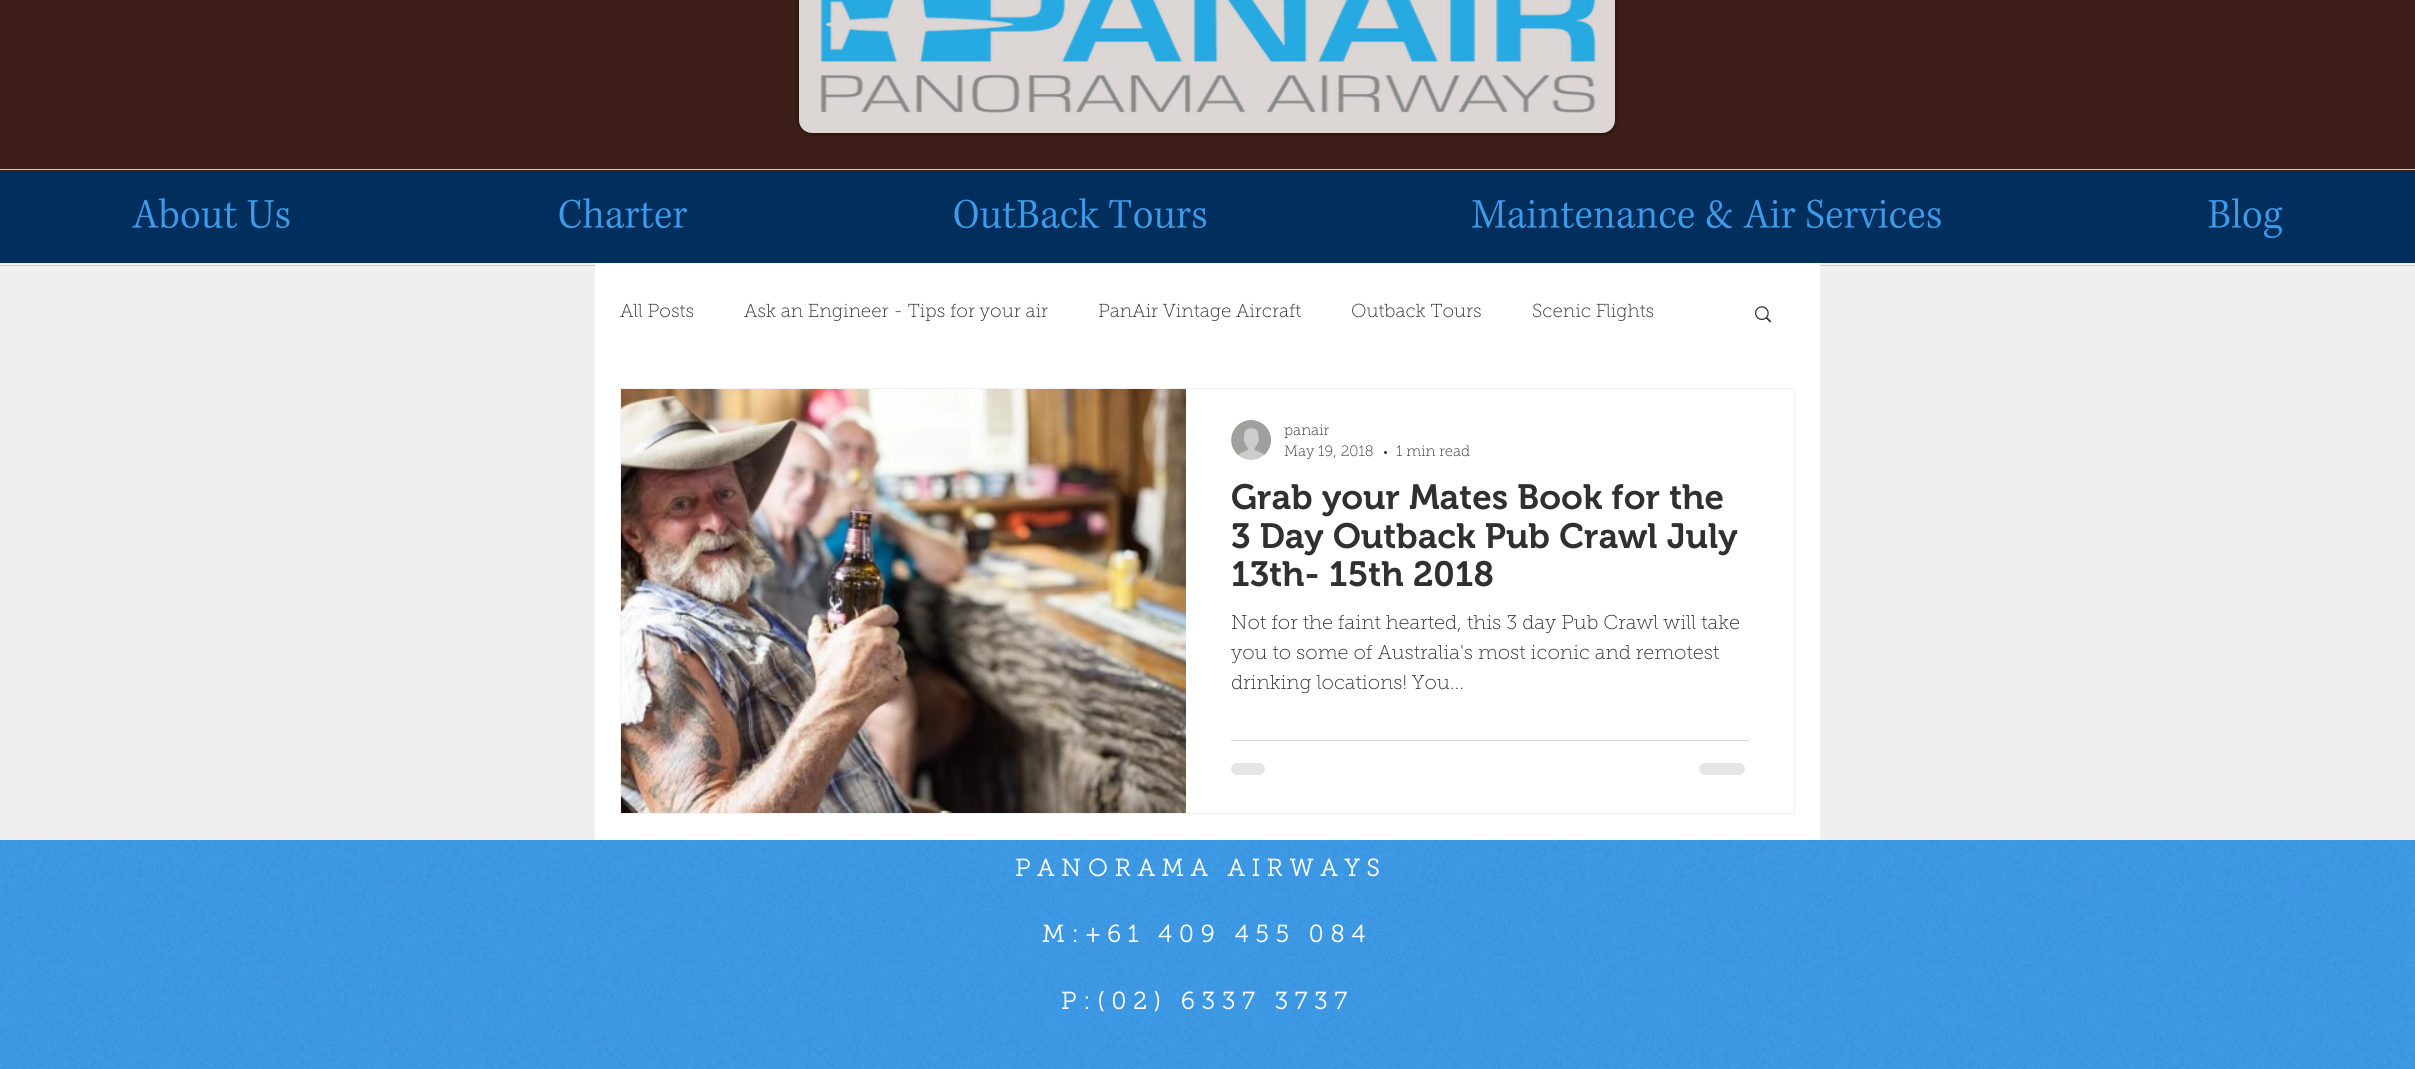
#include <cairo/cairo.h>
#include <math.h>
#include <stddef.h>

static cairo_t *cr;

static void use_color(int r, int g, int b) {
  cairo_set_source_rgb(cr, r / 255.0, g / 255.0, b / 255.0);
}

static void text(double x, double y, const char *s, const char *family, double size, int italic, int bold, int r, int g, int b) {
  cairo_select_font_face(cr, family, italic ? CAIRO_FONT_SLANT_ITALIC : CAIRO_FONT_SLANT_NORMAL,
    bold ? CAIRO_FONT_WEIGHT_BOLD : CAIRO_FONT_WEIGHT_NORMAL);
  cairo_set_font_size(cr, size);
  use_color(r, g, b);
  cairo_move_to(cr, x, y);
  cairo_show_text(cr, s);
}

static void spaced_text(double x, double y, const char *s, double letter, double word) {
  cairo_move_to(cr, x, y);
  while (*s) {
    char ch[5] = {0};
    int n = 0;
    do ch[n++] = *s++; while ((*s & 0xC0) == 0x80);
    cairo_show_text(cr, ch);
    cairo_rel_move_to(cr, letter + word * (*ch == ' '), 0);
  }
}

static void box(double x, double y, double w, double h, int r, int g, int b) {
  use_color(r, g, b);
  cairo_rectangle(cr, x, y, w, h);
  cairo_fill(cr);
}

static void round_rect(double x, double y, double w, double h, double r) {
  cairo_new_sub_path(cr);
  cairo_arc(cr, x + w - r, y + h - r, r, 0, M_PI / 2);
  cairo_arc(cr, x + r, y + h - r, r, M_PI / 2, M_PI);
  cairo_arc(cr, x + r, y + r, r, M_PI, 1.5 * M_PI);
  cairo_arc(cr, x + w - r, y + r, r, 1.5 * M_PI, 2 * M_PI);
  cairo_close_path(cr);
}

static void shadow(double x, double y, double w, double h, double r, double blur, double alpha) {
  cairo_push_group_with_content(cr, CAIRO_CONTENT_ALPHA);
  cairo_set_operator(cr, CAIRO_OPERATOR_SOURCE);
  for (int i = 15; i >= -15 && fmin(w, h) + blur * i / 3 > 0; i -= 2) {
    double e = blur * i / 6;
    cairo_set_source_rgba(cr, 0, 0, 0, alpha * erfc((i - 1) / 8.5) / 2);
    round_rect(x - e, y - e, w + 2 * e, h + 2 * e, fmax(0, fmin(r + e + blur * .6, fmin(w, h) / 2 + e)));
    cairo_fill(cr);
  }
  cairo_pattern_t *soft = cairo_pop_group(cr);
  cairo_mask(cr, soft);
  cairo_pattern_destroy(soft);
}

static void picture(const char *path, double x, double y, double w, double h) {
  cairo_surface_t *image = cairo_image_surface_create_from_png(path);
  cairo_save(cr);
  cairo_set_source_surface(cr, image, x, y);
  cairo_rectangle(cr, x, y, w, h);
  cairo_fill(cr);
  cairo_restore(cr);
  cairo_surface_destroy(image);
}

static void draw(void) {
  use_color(239, 239, 239);
  cairo_paint(cr);
  box(0, 0, 2415, 171, 60, 29, 23);
  cairo_save(cr);
  cairo_set_fill_rule(cr, CAIRO_FILL_RULE_EVEN_ODD);
  cairo_new_path(cr);
  cairo_move_to(cr, 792, 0);
  cairo_line_to(cr, 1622, 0);
  cairo_line_to(cr, 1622, 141);
  cairo_line_to(cr, 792, 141);
  cairo_close_path(cr);
  cairo_move_to(cr, 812, -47);
  cairo_line_to(cr, 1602, -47);
  cairo_curve_to(cr, 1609, -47, 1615, -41, 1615, -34);
  cairo_line_to(cr, 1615, 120);
  cairo_curve_to(cr, 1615, 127, 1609, 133, 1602, 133);
  cairo_line_to(cr, 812, 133);
  cairo_curve_to(cr, 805, 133, 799, 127, 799, 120);
  cairo_line_to(cr, 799, -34);
  cairo_curve_to(cr, 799, -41, 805, -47, 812, -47);
  cairo_close_path(cr);
  cairo_clip(cr);
  use_color(0, 0, 0);
  shadow(799, -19, 816, 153, 13, 2, 0.5);
  cairo_restore(cr);
  cairo_set_source_rgba(cr, 1, 1, 1, 0.82);
  round_rect(799, -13, 816, 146, 13);
  cairo_fill(cr);
  picture("img_01.png", 820, 0, 776, 113);
  box(0, 169, 2415, 1, 202, 202, 202);
  box(0, 265, 2415, 1, 202, 202, 202);
  box(0, 171, 2415, 92, 0, 46, 93);
  picture("img_02.png", 132, 198, 158, 31);
  picture("img_03.png", 559, 198, 128, 31);
  picture("img_04.png", 954, 198, 253, 31);
  picture("img_05.png", 1472, 199, 469, 30);
  picture("img_06.png", 2208, 198, 75, 41);
  box(595, 263, 1225, 577, 255, 255, 255);
  picture("img_07.png", 1755, 306, 17, 17);
  cairo_rectangle(cr, 620.5, 388.5, 1174, 425);
  use_color(243, 243, 243);
  cairo_set_line_width(cr, 1);
  cairo_stroke(cr);
  picture("img_08.png", 621, 389, 565, 424);
  picture("img_09.png", 1231, 420, 40, 40);
  use_color(48, 48, 48);
  cairo_arc(cr, 1385.5, 452.5, 1.5, 0, 2 * M_PI);
  cairo_fill(cr);
  box(1231, 740, 518, 1, 214, 214, 214);
  use_color(230, 230, 230);
  round_rect(1231, 763, 34, 12, 6);
  cairo_fill(cr);
  round_rect(1699, 763, 46, 12, 6);
  cairo_fill(cr);
  box(0, 840, 2415, 229, 61, 155, 233);
  picture("img_10.png", 0, 840, 2415, 229);
  text(620, 317, "All Posts", "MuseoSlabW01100 Thin", 18.75, 0, 0, 48, 48, 48);
  text(744, 317, "Ask an Engineer - Tips for your air", "MuseoSlabW01100 Thin", 18.75, 0, 0, 48, 48, 48);
  text(1098, 317, "PanAir Vintage Aircraft", "MuseoSlabW01100 Thin", 18.75, 0, 0, 48, 48, 48);
  text(1351, 317, "Outback Tours", "MuseoSlabW01100 Thin", 18.75, 0, 0, 48, 48, 48);
  text(1532, 317, "Scenic Flights", "MuseoSlabW01100 Thin", 18.75, 0, 0, 48, 48, 48);
  text(1284, 435, "panair", "MuseoSlabW01100 Thin", 15, 0, 0, 48, 48, 48);
  text(1284, 456, "May 19, 2018", "MuseoSlabW01100 Thin", 15, 0, 0, 48, 48, 48);
  text(1396, 456, "1 min read", "MuseoSlabW01100 Thin", 15, 0, 0, 48, 48, 48);
  text(1231, 509, "Grab your Mates Book for the", "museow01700 SemiBold", 35, 0, 0, 48, 48, 48);
  text(1231, 548, "3 Day Outback Pub Crawl July", "museow01700 SemiBold", 35, 0, 0, 48, 48, 48);
  text(1231, 586, "13th- 15th 2018", "museow01700 SemiBold", 35, 0, 0, 48, 48, 48);
  text(1231, 629, "Not for the faint hearted, this 3 day Pub Crawl will take", "MuseoSlabW01100 Thin", 20, 0, 0, 48, 48, 48);
  text(1231, 659, "you to some of Australia's most iconic and remotest", "MuseoSlabW01100 Thin", 20, 0, 0, 48, 48, 48);
  text(1231, 689, "drinking locations! You...", "MuseoSlabW01100 Thin", 20, 0, 0, 48, 48, 48);
  cairo_select_font_face(cr, "MuseoSlabW01100", CAIRO_FONT_SLANT_NORMAL, CAIRO_FONT_WEIGHT_BOLD);
  cairo_set_font_size(cr, 23.75);
  use_color(255, 255, 255);
  spaced_text(1015, 876, "PANORAMA AIRWAYS", 7.1, 0);
  spaced_text(1042, 942, "M:+61 409 455 084", 7.1, 0);
  spaced_text(1061, 1009, "P:(02) 6337 3737", 7.1, 0);
}

int main(void) {
  cairo_surface_t *surface = cairo_image_surface_create(CAIRO_FORMAT_RGB24, 2415, 1069);
  cr = cairo_create(surface);
  cairo_font_options_t *options = cairo_font_options_create();
  cairo_font_options_set_hint_metrics(options, CAIRO_HINT_METRICS_OFF);
  cairo_font_options_set_hint_style(options, CAIRO_HINT_STYLE_NONE);
  cairo_set_font_options(cr, options);
  cairo_set_miter_limit(cr, 4);
  draw();
  cairo_surface_write_to_png(surface, "out.png");
  cairo_font_options_destroy(options);
  cairo_destroy(cr);
  cairo_surface_destroy(surface);
  return 0;
}
